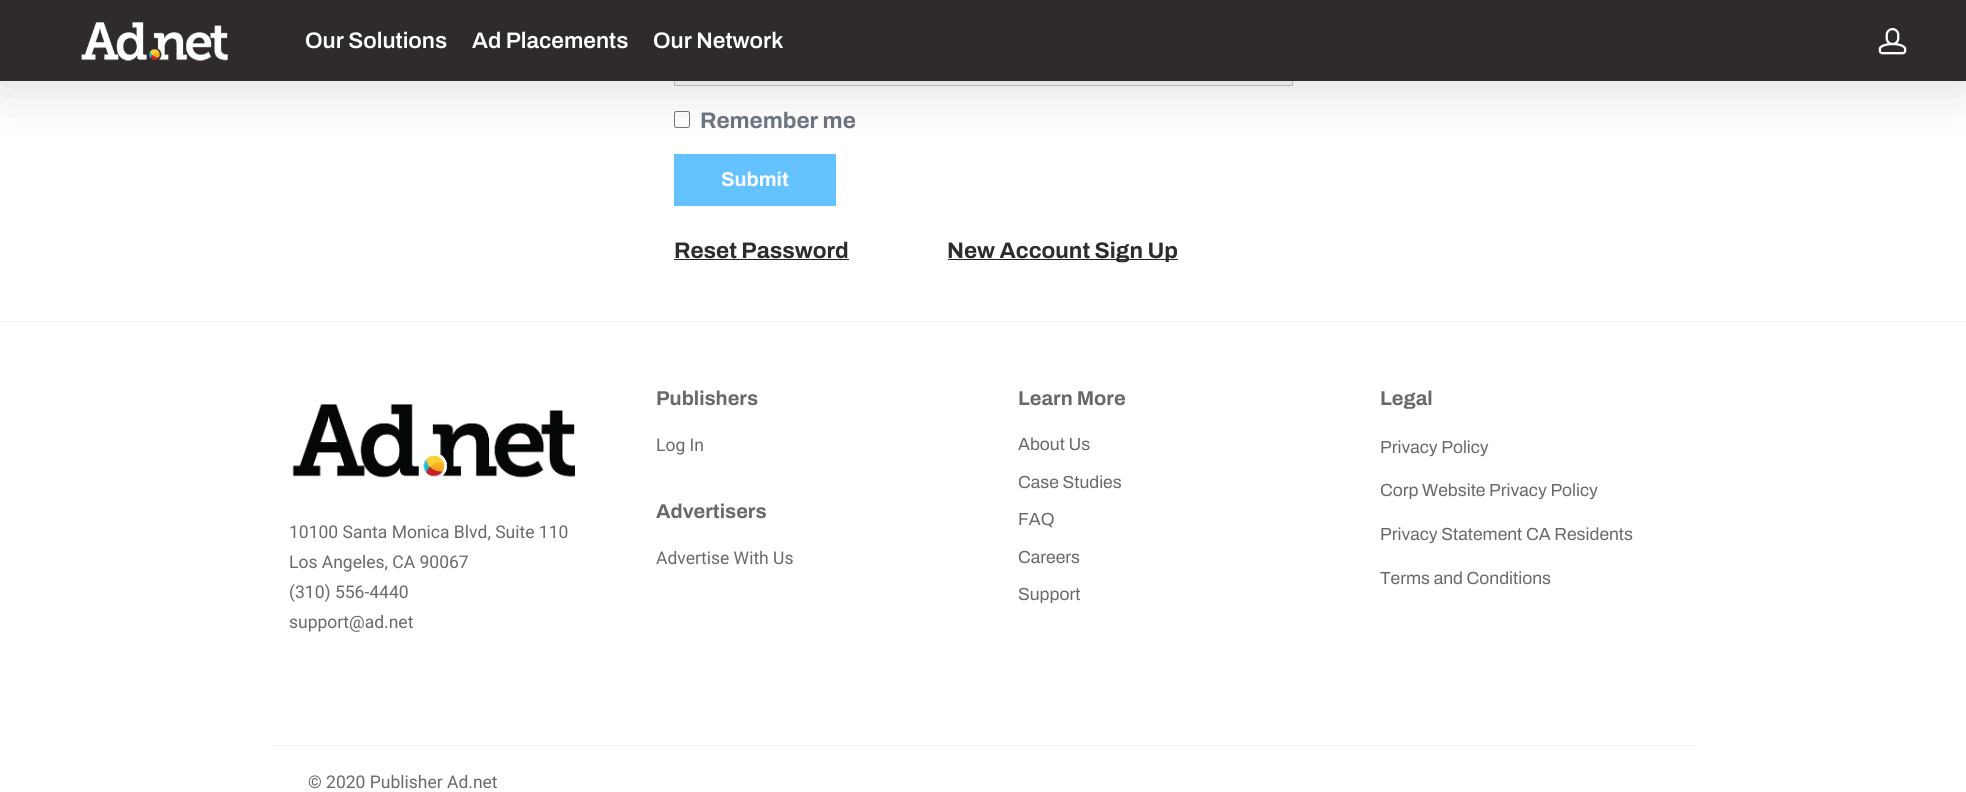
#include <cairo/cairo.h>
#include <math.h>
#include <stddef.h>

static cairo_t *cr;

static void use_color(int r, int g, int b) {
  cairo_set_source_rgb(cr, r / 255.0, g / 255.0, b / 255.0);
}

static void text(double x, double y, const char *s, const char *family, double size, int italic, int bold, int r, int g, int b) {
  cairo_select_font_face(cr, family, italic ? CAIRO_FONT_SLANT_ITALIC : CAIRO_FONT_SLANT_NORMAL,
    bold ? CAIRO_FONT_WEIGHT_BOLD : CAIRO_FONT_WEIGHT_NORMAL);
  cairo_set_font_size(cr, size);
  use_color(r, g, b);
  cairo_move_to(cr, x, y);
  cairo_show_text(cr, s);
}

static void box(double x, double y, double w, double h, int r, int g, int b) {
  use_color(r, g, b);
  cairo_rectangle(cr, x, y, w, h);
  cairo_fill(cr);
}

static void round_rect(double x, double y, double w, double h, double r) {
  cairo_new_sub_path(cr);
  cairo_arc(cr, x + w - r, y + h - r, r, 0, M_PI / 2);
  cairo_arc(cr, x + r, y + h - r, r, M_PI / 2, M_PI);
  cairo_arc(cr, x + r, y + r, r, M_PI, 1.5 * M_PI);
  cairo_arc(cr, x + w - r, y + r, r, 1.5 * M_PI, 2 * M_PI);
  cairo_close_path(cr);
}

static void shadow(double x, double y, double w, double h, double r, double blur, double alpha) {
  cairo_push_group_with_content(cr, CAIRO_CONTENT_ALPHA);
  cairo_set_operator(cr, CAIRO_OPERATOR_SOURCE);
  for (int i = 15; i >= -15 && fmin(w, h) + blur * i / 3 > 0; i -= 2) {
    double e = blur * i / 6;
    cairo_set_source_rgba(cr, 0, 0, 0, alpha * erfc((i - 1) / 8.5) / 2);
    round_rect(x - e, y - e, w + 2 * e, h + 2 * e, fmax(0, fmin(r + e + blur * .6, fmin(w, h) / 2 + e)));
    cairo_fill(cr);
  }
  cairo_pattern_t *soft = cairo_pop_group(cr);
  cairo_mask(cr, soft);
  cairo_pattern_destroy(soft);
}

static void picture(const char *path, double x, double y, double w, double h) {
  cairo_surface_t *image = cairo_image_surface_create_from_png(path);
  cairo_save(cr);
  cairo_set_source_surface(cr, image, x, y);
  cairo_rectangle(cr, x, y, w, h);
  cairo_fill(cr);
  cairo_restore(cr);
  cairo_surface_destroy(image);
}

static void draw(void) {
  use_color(255, 255, 255);
  cairo_paint(cr);
  box(675, 81, 617, 4, 247, 247, 247);
  cairo_rectangle(cr, 674.5, 29.5, 618, 56);
  use_color(196, 196, 196);
  cairo_set_line_width(cr, 1);
  cairo_stroke(cr);
  round_rect(674.5, 111.5, 15, 16, 2);
  use_color(118, 118, 118);
  cairo_stroke(cr);
  box(674, 154, 162, 52, 99, 194, 255);
  use_color(0, 0, 0);
  shadow(0, 4, 1966, 81, 0, 28, 0.15);
  box(0, 0, 1966, 81, 47, 43, 43);
  picture("img_01.png", 81, 22, 147, 39);
  picture("img_02.png", 1878, 28, 29, 27);
  box(674, 259, 175, 1, 33, 37, 41);
  box(948, 259, 230, 1, 33, 37, 41);
  box(0, 321, 1966, 1, 240, 240, 240);
  picture("img_03.png", 292, 404, 283, 74);
  box(271, 745, 1425, 1, 240, 240, 240);
  text(305, 48, "Our Solutions", "Archivo SemiBold", 22.5, 0, 0, 255, 255, 255);
  text(472, 48, "Ad Placements", "Archivo SemiBold", 22.5, 0, 0, 255, 255, 255);
  text(653, 48, "Our Network", "Archivo SemiBold", 22.5, 0, 0, 255, 255, 255);
  text(700, 128, "Remember me", "Archivo", 22.5, 0, 1, 108, 117, 125);
  text(721, 186, "Submit", "Archivo", 20, 0, 1, 255, 255, 255);
  text(674, 258, "Reset Password", "Archivo", 22.5, 0, 1, 47, 43, 43);
  text(947, 258, "New Account Sign Up", "Archivo", 22.5, 0, 1, 47, 43, 43);
  text(289, 538, "10100 Santa Monica Blvd, Suite 110", "Roboto", 17.5, 0, 0, 105, 105, 105);
  text(289, 568, "Los Angeles, CA 90067", "Roboto", 17.5, 0, 0, 105, 105, 105);
  text(289, 598, "(310) 556-4440", "Roboto", 17.5, 0, 0, 105, 105, 105);
  text(289, 628, "support@ad.net", "Roboto", 17.5, 0, 0, 105, 105, 105);
  text(656, 405, "Publishers", "Archivo", 20, 0, 1, 105, 105, 105);
  text(656, 451, "Log In", "Roboto", 17.5, 0, 0, 105, 105, 105);
  text(656, 518, "Advertisers", "Archivo", 20, 0, 1, 105, 105, 105);
  text(656, 564, "Advertise With Us", "Roboto", 17.5, 0, 0, 105, 105, 105);
  text(1018, 405, "Learn More", "Archivo", 20, 0, 1, 105, 105, 105);
  text(1018, 450, "About Us", "Archivo", 17.5, 0, 0, 105, 105, 105);
  text(1018, 488, "Case Studies", "Archivo", 17.5, 0, 0, 105, 105, 105);
  text(1018, 525, "FAQ", "Archivo", 17.5, 0, 0, 105, 105, 105);
  text(1018, 563, "Careers", "Archivo", 17.5, 0, 0, 105, 105, 105);
  text(1018, 600, "Support", "Archivo", 17.5, 0, 0, 105, 105, 105);
  text(1380, 405, "Legal", "Archivo", 20, 0, 1, 105, 105, 105);
  text(1380, 453, "Privacy Policy", "Archivo", 17.5, 0, 0, 105, 105, 105);
  text(1380, 496, "Corp Website Privacy Policy", "Archivo", 17.5, 0, 0, 105, 105, 105);
  text(1380, 540, "Privacy Statement CA Residents", "Archivo", 17.5, 0, 0, 105, 105, 105);
  text(1380, 584, "Terms and Conditions", "Archivo", 17.5, 0, 0, 105, 105, 105);
  text(308, 788, "© 2020 Publisher Ad.net", "Roboto", 17.5, 0, 0, 105, 105, 105);
}

int main(void) {
  cairo_surface_t *surface = cairo_image_surface_create(CAIRO_FORMAT_RGB24, 1966, 792);
  cr = cairo_create(surface);
  cairo_font_options_t *options = cairo_font_options_create();
  cairo_font_options_set_hint_metrics(options, CAIRO_HINT_METRICS_OFF);
  cairo_font_options_set_hint_style(options, CAIRO_HINT_STYLE_NONE);
  cairo_set_font_options(cr, options);
  cairo_set_miter_limit(cr, 4);
  draw();
  cairo_surface_write_to_png(surface, "out.png");
  cairo_font_options_destroy(options);
  cairo_destroy(cr);
  cairo_surface_destroy(surface);
  return 0;
}
